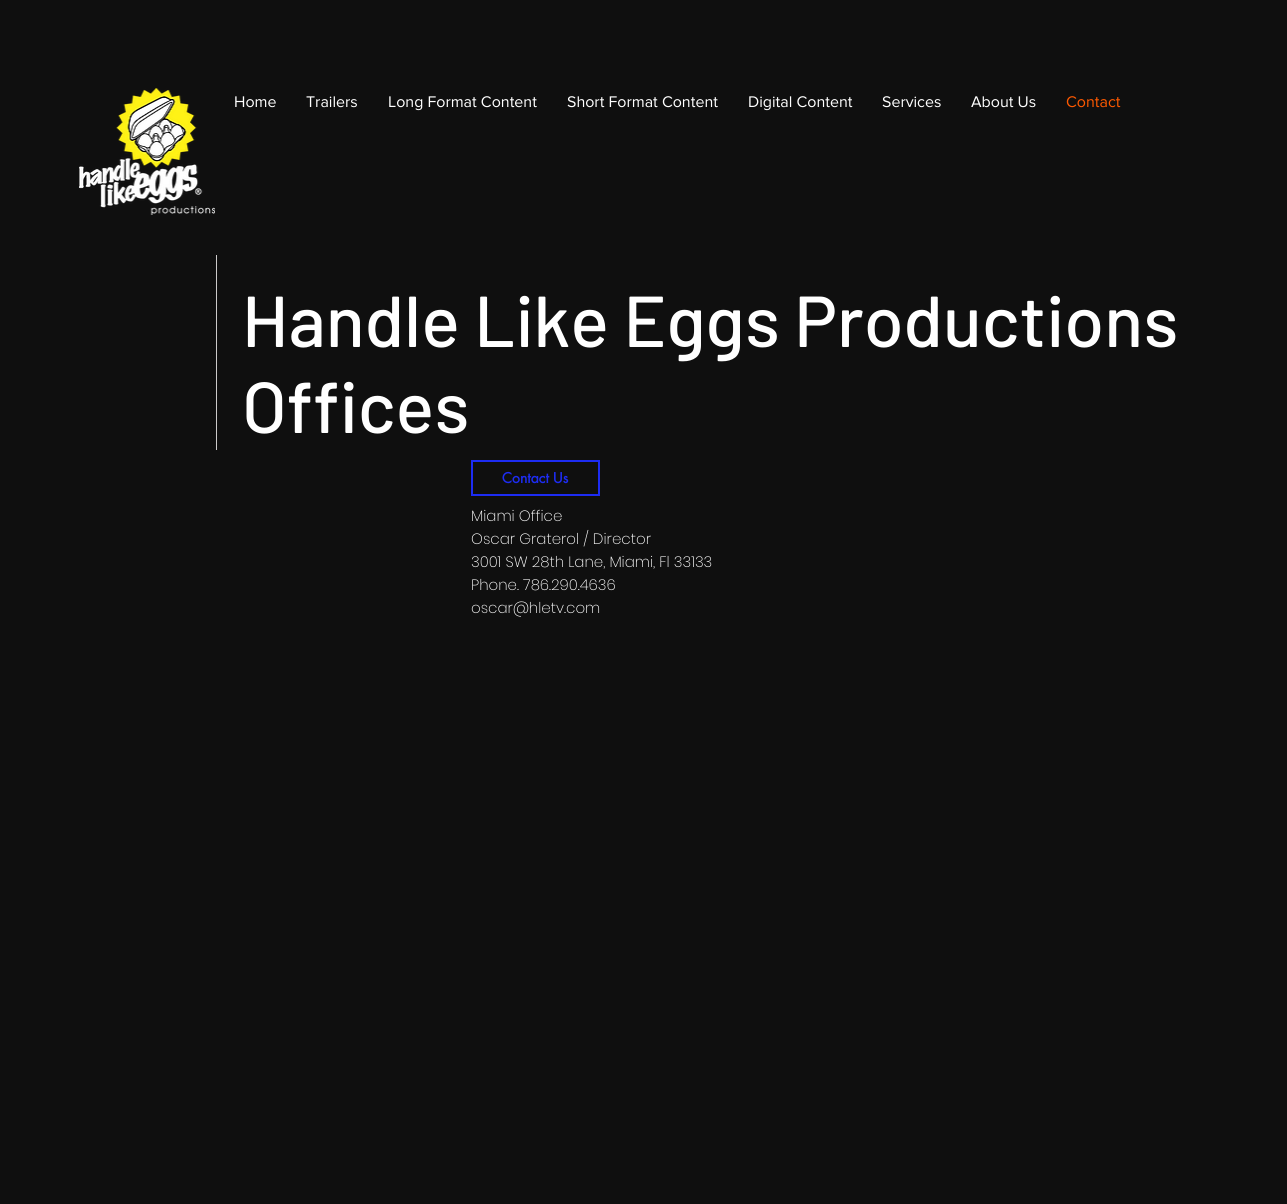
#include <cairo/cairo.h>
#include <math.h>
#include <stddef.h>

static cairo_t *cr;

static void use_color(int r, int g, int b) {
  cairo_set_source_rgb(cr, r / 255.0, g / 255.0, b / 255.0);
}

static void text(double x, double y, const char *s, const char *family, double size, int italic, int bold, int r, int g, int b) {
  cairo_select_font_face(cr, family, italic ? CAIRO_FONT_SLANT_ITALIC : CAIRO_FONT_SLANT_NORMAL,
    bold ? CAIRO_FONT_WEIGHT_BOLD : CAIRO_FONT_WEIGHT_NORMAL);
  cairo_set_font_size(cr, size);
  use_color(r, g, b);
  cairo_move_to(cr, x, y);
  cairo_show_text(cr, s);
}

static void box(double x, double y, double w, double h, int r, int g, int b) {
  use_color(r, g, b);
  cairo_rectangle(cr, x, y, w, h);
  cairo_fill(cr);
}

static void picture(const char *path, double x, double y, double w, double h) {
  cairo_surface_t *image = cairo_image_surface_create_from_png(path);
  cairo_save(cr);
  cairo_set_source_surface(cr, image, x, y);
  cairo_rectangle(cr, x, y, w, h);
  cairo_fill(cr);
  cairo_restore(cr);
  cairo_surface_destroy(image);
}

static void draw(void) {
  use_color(15, 15, 15);
  cairo_paint(cr);
  picture("img_01.png", 79, 88, 136, 127);
  box(216, 255, 1, 195, 204, 202, 202);
  cairo_rectangle(cr, 472, 461, 127, 34);
  use_color(29, 44, 243);
  cairo_stroke(cr);
  text(234, 107, "Home", "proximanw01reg", 16, 0, 0, 255, 255, 255);
  text(306, 107, "Trailers", "proximanw01reg", 16, 0, 0, 255, 255, 255);
  text(388, 107, "Long Format Content", "proximanw01reg", 16, 0, 0, 255, 255, 255);
  text(567, 107, "Short Format Content", "proximanw01reg", 16, 0, 0, 255, 255, 255);
  text(748, 107, "Digital Content", "proximanw01reg", 16, 0, 0, 255, 255, 255);
  text(882, 107, "Services", "proximanw01reg", 16, 0, 0, 255, 255, 255);
  text(971, 107, "About Us", "proximanw01reg", 16, 0, 0, 255, 255, 255);
  text(1066, 107, "Contact", "proximanw01reg", 16, 0, 0, 255, 89, 0);
  text(242, 347, "Handle Like Eggs Productions", "Barlow Medium", 72, 0, 0, 255, 255, 255);
  text(242, 433, "Offices", "Barlow Medium", 72, 0, 0, 255, 255, 255);
  text(502, 483, "Contact Us", "futura", 14, 0, 1, 29, 44, 243);
  text(471, 521, "Miami Office", "Poppins ExtraLight", 15, 0, 0, 255, 255, 255);
  text(471, 544, "Oscar Graterol / Director", "Poppins ExtraLight", 15, 0, 0, 255, 255, 255);
  text(471, 567, "3001 SW 28th Lane, Miami, Fl 33133", "Poppins ExtraLight", 15, 0, 0, 255, 255, 255);
  text(471, 590, "Phone. 786.290.4636", "Poppins ExtraLight", 15, 0, 0, 255, 255, 255);
  text(471, 613, "oscar@hletv.com", "Poppins ExtraLight", 15, 0, 0, 255, 255, 255);
}

int main(void) {
  cairo_surface_t *surface = cairo_image_surface_create(CAIRO_FORMAT_RGB24, 1287, 1204);
  cr = cairo_create(surface);
  cairo_font_options_t *options = cairo_font_options_create();
  cairo_font_options_set_hint_metrics(options, CAIRO_HINT_METRICS_OFF);
  cairo_font_options_set_hint_style(options, CAIRO_HINT_STYLE_NONE);
  cairo_set_font_options(cr, options);
  cairo_set_miter_limit(cr, 4);
  draw();
  cairo_surface_write_to_png(surface, "out.png");
  cairo_font_options_destroy(options);
  cairo_destroy(cr);
  cairo_surface_destroy(surface);
  return 0;
}
